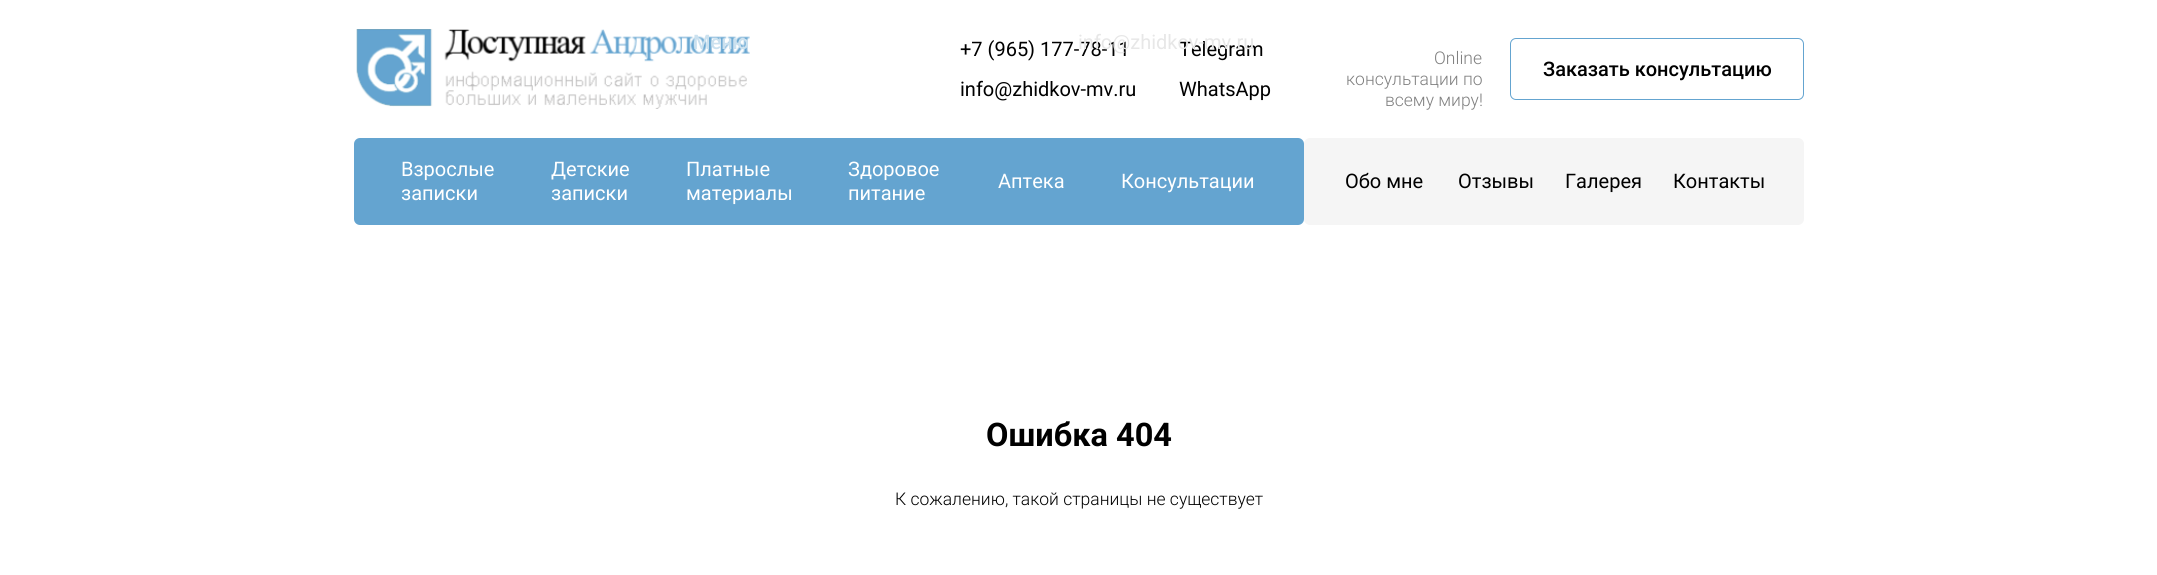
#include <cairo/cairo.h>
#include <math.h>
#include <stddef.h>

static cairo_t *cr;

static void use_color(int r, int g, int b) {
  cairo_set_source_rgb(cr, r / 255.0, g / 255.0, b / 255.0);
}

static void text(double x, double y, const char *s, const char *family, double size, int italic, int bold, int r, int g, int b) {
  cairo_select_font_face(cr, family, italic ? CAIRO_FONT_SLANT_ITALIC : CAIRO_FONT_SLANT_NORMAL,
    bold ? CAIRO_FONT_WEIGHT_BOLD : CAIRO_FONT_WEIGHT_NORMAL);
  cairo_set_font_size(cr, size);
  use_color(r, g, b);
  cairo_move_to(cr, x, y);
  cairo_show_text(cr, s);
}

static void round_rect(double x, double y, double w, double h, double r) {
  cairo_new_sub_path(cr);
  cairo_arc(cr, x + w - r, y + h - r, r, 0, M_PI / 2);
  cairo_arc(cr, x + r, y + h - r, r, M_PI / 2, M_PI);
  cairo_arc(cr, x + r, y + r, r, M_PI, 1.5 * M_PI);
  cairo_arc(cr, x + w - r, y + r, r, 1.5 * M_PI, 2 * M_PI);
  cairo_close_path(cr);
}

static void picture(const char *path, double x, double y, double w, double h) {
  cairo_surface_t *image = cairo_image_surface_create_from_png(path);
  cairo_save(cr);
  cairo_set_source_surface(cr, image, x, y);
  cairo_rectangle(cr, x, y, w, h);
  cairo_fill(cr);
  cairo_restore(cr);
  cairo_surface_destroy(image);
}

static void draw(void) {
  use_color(255, 255, 255);
  cairo_paint(cr);
  picture("img_01.png", 356, 29, 394, 80);
  round_rect(1510.5, 38.5, 293, 61, 5.5);
  use_color(100, 164, 208);
  cairo_set_line_width(cr, 1);
  cairo_stroke(cr);
  round_rect(354, 138, 950, 87, 6);
  cairo_fill(cr);
  use_color(245, 245, 245);
  round_rect(1304, 138, 500, 87, 6);
  cairo_fill(cr);
  text(693, 49, "Меню", "Roboto Medium", 20, 0, 0, 203, 225, 239);
  text(960, 56, "+7 (965) 177-78-11", "Roboto", 20, 0, 0, 0, 0, 0);
  text(1179, 56, "Telegram", "Roboto", 20, 0, 0, 0, 0, 0);
  text(1078, 49, "info@zhidkov-mv.ru", "Roboto", 20, 0, 0, 231, 231, 231);
  text(1434, 64, "Online", "Roboto Light", 17.5, 0, 0, 128, 128, 128);
  text(1346, 85, "консультации по", "Roboto Light", 17.5, 0, 0, 128, 128, 128);
  text(1385, 106, "всему миру!", "Roboto Light", 17.5, 0, 0, 128, 128, 128);
  text(1543, 76, "Заказать консультацию", "Roboto Medium", 20, 0, 0, 0, 0, 0);
  text(960, 96, "info@zhidkov-mv.ru", "Roboto", 20, 0, 0, 0, 0, 0);
  text(1179, 96, "WhatsApp", "Roboto", 20, 0, 0, 0, 0, 0);
  text(401, 176, "Взрослые", "Roboto", 20, 0, 0, 255, 255, 255);
  text(401, 200, "записки", "Roboto", 20, 0, 0, 255, 255, 255);
  text(551, 176, "Детские", "Roboto", 20, 0, 0, 255, 255, 255);
  text(551, 200, "записки", "Roboto", 20, 0, 0, 255, 255, 255);
  text(686, 176, "Платные", "Roboto", 20, 0, 0, 255, 255, 255);
  text(686, 200, "материалы", "Roboto", 20, 0, 0, 255, 255, 255);
  text(848, 176, "Здоровое", "Roboto", 20, 0, 0, 255, 255, 255);
  text(848, 200, "питание", "Roboto", 20, 0, 0, 255, 255, 255);
  text(998, 188, "Аптека", "Roboto", 20, 0, 0, 255, 255, 255);
  text(1121, 188, "Консультации", "Roboto", 20, 0, 0, 255, 255, 255);
  text(1345, 188, "Обо мне", "Roboto", 20, 0, 0, 0, 0, 0);
  text(1458, 188, "Отзывы", "Roboto", 20, 0, 0, 0, 0, 0);
  text(1565, 188, "Галерея", "Roboto", 20, 0, 0, 0, 0, 0);
  text(1673, 188, "Контакты", "Roboto", 20, 0, 0, 0, 0, 0);
  text(986, 446, "Ошибка 404", "Roboto", 32.5, 0, 1, 0, 0, 0);
  text(895, 505, "К сожалению, такой страницы не существует", "Roboto Light", 17.5, 0, 0, 0, 0, 0);
}

int main(void) {
  cairo_surface_t *surface = cairo_image_surface_create(CAIRO_FORMAT_RGB24, 2157, 575);
  cr = cairo_create(surface);
  cairo_font_options_t *options = cairo_font_options_create();
  cairo_font_options_set_hint_metrics(options, CAIRO_HINT_METRICS_OFF);
  cairo_font_options_set_hint_style(options, CAIRO_HINT_STYLE_NONE);
  cairo_set_font_options(cr, options);
  cairo_set_miter_limit(cr, 4);
  draw();
  cairo_surface_write_to_png(surface, "out.png");
  cairo_font_options_destroy(options);
  cairo_destroy(cr);
  cairo_surface_destroy(surface);
  return 0;
}
